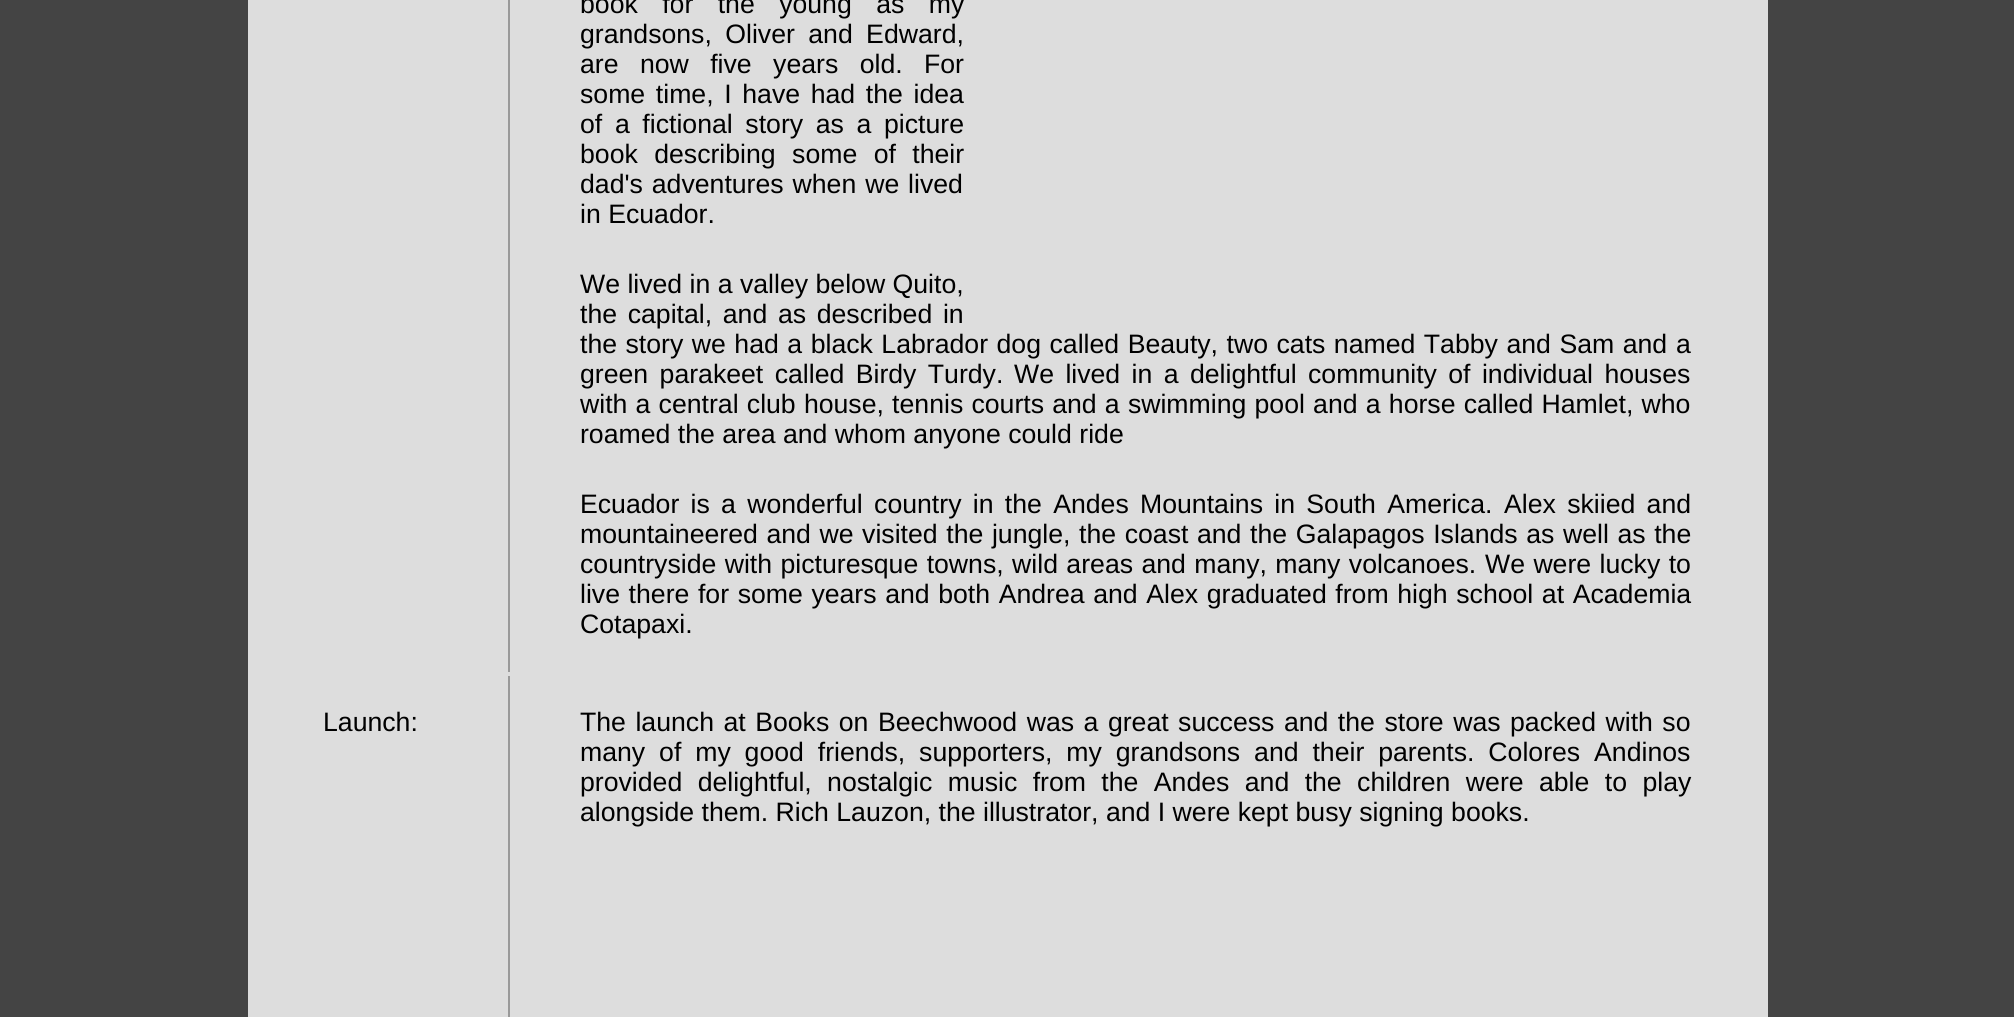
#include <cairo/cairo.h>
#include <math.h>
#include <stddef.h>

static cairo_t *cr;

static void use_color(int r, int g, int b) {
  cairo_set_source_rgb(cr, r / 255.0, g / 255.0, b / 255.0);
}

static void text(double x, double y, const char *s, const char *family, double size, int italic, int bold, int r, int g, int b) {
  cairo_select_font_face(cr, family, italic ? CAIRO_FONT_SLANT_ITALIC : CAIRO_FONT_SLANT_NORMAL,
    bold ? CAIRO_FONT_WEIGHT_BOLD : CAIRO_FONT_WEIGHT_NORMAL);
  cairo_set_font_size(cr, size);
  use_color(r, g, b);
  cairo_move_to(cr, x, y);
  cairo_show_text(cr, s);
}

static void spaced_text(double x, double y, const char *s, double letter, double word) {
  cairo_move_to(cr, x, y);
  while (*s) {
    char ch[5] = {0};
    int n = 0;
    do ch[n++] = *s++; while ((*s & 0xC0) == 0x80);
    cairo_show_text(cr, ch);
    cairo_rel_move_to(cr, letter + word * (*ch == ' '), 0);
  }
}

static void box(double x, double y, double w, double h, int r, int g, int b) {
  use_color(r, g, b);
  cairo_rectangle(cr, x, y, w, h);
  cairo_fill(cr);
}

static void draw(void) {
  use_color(68, 68, 68);
  cairo_paint(cr);
  box(248, 0, 1520, 1017, 221, 221, 221);
  box(508, 0, 2, 672, 153, 153, 153);
  box(508, 676, 2, 341, 153, 153, 153);
  cairo_select_font_face(cr, "Liberation Sans", CAIRO_FONT_SLANT_NORMAL, CAIRO_FONT_WEIGHT_NORMAL);
  cairo_set_font_size(cr, 26.65);
  use_color(0, 0, 0);
  spaced_text(580, 13, "book for the young as my", 0, 17);
  spaced_text(580, 43, "grandsons, Oliver and Edward,", 0, 6);
  spaced_text(580, 73, "are now five years old. For", 0, 14);
  spaced_text(580, 103, "some time, I have had the idea", 0, 3.25);
  spaced_text(580, 133, "of a fictional story as a picture", 0, 5.25);
  spaced_text(580, 163, "book describing some of their", 0, 9);
  spaced_text(580, 193, "dad's adventures when we lived", 0, 1.5);
  text(580, 223, "in Ecuador.", "Liberation Sans", 26.65, 0, 0, 0, 0, 0);
  text(580, 293, "We lived in a valley below Quito,", "Liberation Sans", 26.65, 0, 0, 0, 0, 0);
  spaced_text(580, 323, "the capital, and as described in", 0, 3.25);
  spaced_text(580, 353, "the story we had a black Labrador dog called Beauty, two cats named Tabby and Sam and", 0, 1.1);
  text(1676, 353, "a", "Liberation Sans", 26.65, 0, 0, 0, 0, 0);
  spaced_text(580, 383, "green parakeet called Birdy Turdy.", 0, 4);
  spaced_text(1014, 383, "We lived in a delightful community of individual houses", 0, 4);
  spaced_text(580, 413, "with a central club house, tennis courts and a swimming pool and a horse called Hamlet, who", 0, 0.8);
  text(580, 443, "roamed the area and whom anyone could ride", "Liberation Sans", 26.65, 0, 0, 0, 0, 0);
  spaced_text(580, 513, "Ecuador is a wonderful country in the Andes Mountains in South America.", 0, 3.9);
  spaced_text(1504, 513, "Alex skiied and", 0, 3.9);
  spaced_text(580, 543, "mountaineered and we visited the jungle, the coast and the Galapagos Islands as well as the", 0, 1.2);
  spaced_text(580, 573, "countryside with picturesque towns, wild areas and many, many volcanoes.", 0, 1);
  spaced_text(1485, 573, "We were lucky to", 0, 1);
  spaced_text(580, 603, "live there for some years and both Andrea and Alex graduated from high school at Academia", 0, 1.2);
  text(580, 633, "Cotapaxi.", "Liberation Sans", 26.65, 0, 0, 0, 0, 0);
  text(323, 731, "Launch:", "Liberation Sans", 26.65, 0, 0, 0, 0, 0);
  spaced_text(580, 731, "The launch at Books on Beechwood was a great success and the store was packed with so", 0, 2.1);
  spaced_text(580, 761, "many of my good friends, supporters, my grandsons and their parents. Colores Andinos", 0, 6.5);
  spaced_text(580, 791, "provided delightful, nostalgic music from the Andes and the children were able to play", 0, 8);
  text(580, 821, "alongside them. Rich Lauzon, the illustrator, and I were kept busy signing books.", "Liberation Sans", 26.65, 0, 0, 0, 0, 0);
}

int main(void) {
  cairo_surface_t *surface = cairo_image_surface_create(CAIRO_FORMAT_RGB24, 2014, 1017);
  cr = cairo_create(surface);
  cairo_font_options_t *options = cairo_font_options_create();
  cairo_font_options_set_hint_metrics(options, CAIRO_HINT_METRICS_OFF);
  cairo_font_options_set_hint_style(options, CAIRO_HINT_STYLE_NONE);
  cairo_set_font_options(cr, options);
  cairo_set_miter_limit(cr, 4);
  draw();
  cairo_surface_write_to_png(surface, "out.png");
  cairo_font_options_destroy(options);
  cairo_destroy(cr);
  cairo_surface_destroy(surface);
  return 0;
}
